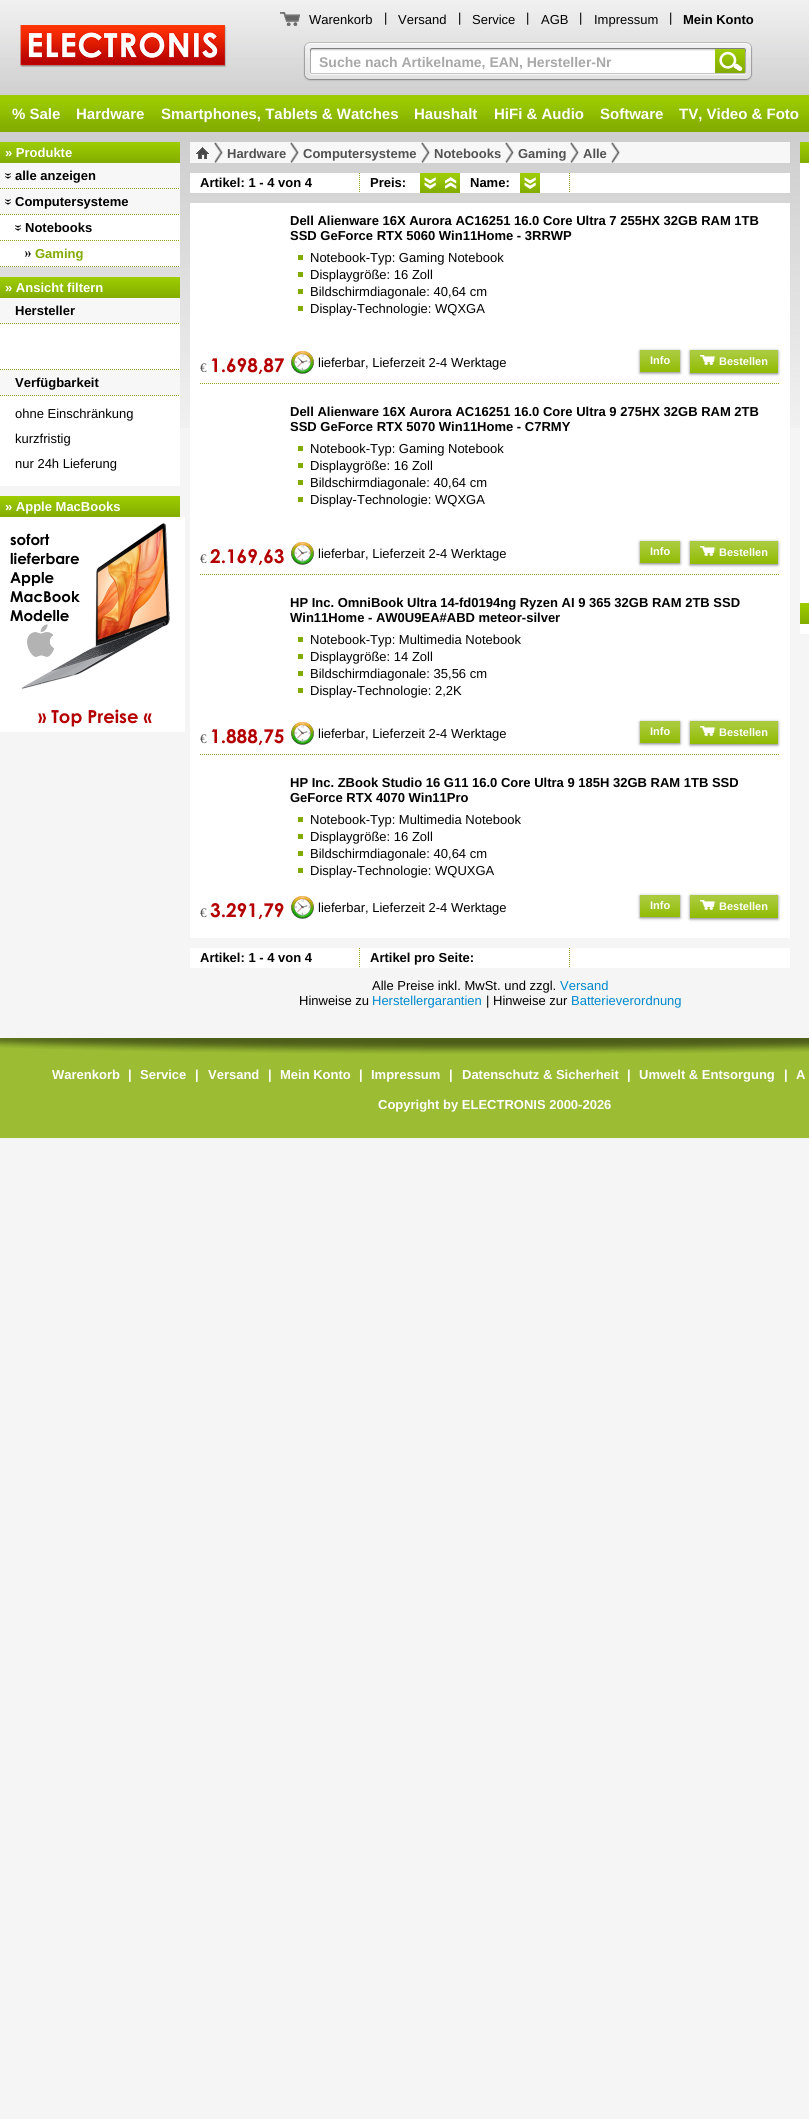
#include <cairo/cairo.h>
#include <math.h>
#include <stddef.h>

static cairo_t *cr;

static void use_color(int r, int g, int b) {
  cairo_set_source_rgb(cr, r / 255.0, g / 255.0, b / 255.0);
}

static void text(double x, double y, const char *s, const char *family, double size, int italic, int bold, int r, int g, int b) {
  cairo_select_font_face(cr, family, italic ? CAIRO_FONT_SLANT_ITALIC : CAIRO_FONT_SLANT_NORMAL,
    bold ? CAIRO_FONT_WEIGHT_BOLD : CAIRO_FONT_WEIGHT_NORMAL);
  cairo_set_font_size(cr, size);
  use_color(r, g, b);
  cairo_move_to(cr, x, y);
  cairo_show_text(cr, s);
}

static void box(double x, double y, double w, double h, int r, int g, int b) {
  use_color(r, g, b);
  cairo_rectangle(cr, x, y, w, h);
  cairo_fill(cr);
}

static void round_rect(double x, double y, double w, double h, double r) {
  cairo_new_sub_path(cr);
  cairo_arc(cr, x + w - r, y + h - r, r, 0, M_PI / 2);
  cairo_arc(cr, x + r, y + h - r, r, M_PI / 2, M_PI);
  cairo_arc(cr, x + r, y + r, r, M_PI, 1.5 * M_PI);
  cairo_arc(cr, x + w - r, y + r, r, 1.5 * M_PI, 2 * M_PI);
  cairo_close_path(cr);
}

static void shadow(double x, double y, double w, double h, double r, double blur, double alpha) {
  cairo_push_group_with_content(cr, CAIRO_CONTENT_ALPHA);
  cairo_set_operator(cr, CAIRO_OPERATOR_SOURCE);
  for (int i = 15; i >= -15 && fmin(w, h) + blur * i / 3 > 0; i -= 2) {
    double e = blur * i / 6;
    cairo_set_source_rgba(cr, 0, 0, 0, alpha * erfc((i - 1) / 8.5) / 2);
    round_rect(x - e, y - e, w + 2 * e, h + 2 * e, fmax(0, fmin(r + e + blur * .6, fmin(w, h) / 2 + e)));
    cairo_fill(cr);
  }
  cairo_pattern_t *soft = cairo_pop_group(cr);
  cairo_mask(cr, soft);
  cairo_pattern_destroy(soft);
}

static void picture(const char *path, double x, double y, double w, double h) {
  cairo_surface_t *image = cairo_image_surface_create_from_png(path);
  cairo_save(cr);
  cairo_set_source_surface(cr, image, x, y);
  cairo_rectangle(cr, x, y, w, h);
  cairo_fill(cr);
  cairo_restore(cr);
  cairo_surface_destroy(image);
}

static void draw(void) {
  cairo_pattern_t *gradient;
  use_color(245, 245, 245);
  cairo_paint(cr);
  picture("img_01.png", 0, 0, 809, 428);
  picture("img_02.png", 280, 12, 20, 14);
  picture("img_03.png", 20, 25, 207, 42);
  picture("img_04.png", 303, 42, 412, 40);
  picture("img_05.png", 715, 42, 38, 40);
  gradient = cairo_pattern_create_linear(90, 142, 90, 163);
  cairo_pattern_add_color_stop_rgba(gradient, 0, 0.616, 0.804, 0, 1);
  cairo_pattern_add_color_stop_rgba(gradient, 1, 0.514, 0.675, 0, 1);
  cairo_set_source(cr, gradient);
  cairo_pattern_destroy(gradient);
  cairo_rectangle(cr, 0, 142, 180, 21);
  cairo_fill(cr);
  box(0, 163, 180, 52, 247, 247, 247);
  picture("img_06.png", 4, 173, 8, 6);
  cairo_new_path(cr);
  cairo_move_to(cr, 0, 188.5);
  cairo_line_to(cr, 180, 188.5);
  use_color(138, 165, 32);
  cairo_set_line_width(cr, 1);
  cairo_set_dash(cr, (double[]){1, 1}, 2, 0);
  cairo_stroke(cr);
  picture("img_06.png", 4, 199, 8, 6);
  cairo_new_path(cr);
  cairo_move_to(cr, 0, 214.5);
  cairo_line_to(cr, 180, 214.5);
  cairo_stroke(cr);
  box(0, 215, 180, 52, 255, 255, 255);
  picture("img_07.png", 14, 225, 8, 6);
  cairo_new_path(cr);
  cairo_move_to(cr, 0, 240.5);
  cairo_line_to(cr, 180, 240.5);
  use_color(138, 165, 32);
  cairo_stroke(cr);
  picture("img_08.png", 24, 251, 8, 6);
  cairo_new_path(cr);
  cairo_move_to(cr, 0, 266.5);
  cairo_line_to(cr, 180, 266.5);
  cairo_stroke(cr);
  gradient = cairo_pattern_create_linear(90, 277, 90, 298);
  cairo_pattern_add_color_stop_rgba(gradient, 0, 0.616, 0.804, 0, 1);
  cairo_pattern_add_color_stop_rgba(gradient, 1, 0.514, 0.675, 0, 1);
  cairo_set_source(cr, gradient);
  cairo_pattern_destroy(gradient);
  cairo_rectangle(cr, 0, 277, 180, 21);
  cairo_fill(cr);
  box(0, 298, 180, 26, 247, 247, 247);
  cairo_new_path(cr);
  cairo_move_to(cr, 0, 323.5);
  cairo_line_to(cr, 180, 323.5);
  use_color(138, 165, 32);
  cairo_stroke(cr);
  box(0, 324, 180, 45, 255, 255, 255);
  box(0, 369, 180, 27, 247, 247, 247);
  cairo_new_path(cr);
  cairo_move_to(cr, 0, 369.5);
  cairo_line_to(cr, 180, 369.5);
  use_color(138, 165, 32);
  cairo_stroke(cr);
  cairo_new_path(cr);
  cairo_move_to(cr, 0, 395.5);
  cairo_line_to(cr, 180, 395.5);
  cairo_stroke(cr);
  box(0, 396, 180, 90, 255, 255, 255);
  gradient = cairo_pattern_create_linear(90, 496, 90, 517);
  cairo_pattern_add_color_stop_rgba(gradient, 0, 0.616, 0.804, 0, 1);
  cairo_pattern_add_color_stop_rgba(gradient, 1, 0.514, 0.675, 0, 1);
  cairo_set_source(cr, gradient);
  cairo_pattern_destroy(gradient);
  cairo_rectangle(cr, 0, 496, 180, 21);
  cairo_fill(cr);
  box(0, 517, 185, 215, 255, 255, 255);
  picture("img_09.png", 21, 523, 149, 166);
  box(190, 142, 600, 21, 247, 247, 247);
  picture("img_10.png", 214, 142, 9, 21);
  picture("img_11.png", 196, 147, 13, 12);
  picture("img_10.png", 290, 142, 9, 21);
  picture("img_10.png", 421, 142, 9, 21);
  picture("img_10.png", 505, 142, 9, 21);
  picture("img_10.png", 570, 142, 9, 21);
  picture("img_10.png", 611, 142, 9, 21);
  box(190, 173, 230, 20, 255, 255, 255);
  cairo_new_path(cr);
  cairo_move_to(cr, 359.5, 173);
  cairo_line_to(cr, 359.5, 193);
  use_color(138, 165, 32);
  cairo_stroke(cr);
  picture("img_12.png", 420, 173, 20, 20);
  picture("img_13.png", 440, 173, 20, 20);
  box(460, 173, 60, 20, 255, 255, 255);
  picture("img_12.png", 520, 173, 20, 20);
  box(540, 173, 250, 20, 255, 255, 255);
  cairo_new_path(cr);
  cairo_move_to(cr, 569.5, 173);
  cairo_line_to(cr, 569.5, 193);
  use_color(138, 165, 32);
  cairo_stroke(cr);
  box(190, 203, 600, 735, 255, 255, 255);
  cairo_new_path(cr);
  cairo_move_to(cr, 200, 383.5);
  cairo_line_to(cr, 780, 383.5);
  use_color(138, 165, 32);
  cairo_stroke(cr);
  box(298, 255, 5, 5, 130, 171, 0);
  box(298, 272, 5, 5, 130, 171, 0);
  box(298, 289, 5, 5, 130, 171, 0);
  box(298, 306, 5, 5, 130, 171, 0);
  picture("img_14.png", 291, 351, 23, 23);
  use_color(0, 0, 0);
  shadow(640, 351, 40, 22, 0, 1.5, 0.5);
  box(640, 350, 40, 22, 143, 186, 0);
  picture("img_15.png", 640, 350, 40, 22);
  use_color(0, 0, 0);
  shadow(690, 351, 88, 23, 0, 1.5, 0.5);
  box(690, 350, 88, 23, 143, 186, 0);
  picture("img_16.png", 690, 350, 88, 22);
  picture("img_17.png", 700, 355, 16, 10);
  cairo_new_path(cr);
  cairo_move_to(cr, 200, 574.5);
  cairo_line_to(cr, 780, 574.5);
  use_color(138, 165, 32);
  cairo_stroke(cr);
  box(298, 446, 5, 5, 130, 171, 0);
  box(298, 463, 5, 5, 130, 171, 0);
  box(298, 480, 5, 5, 130, 171, 0);
  box(298, 497, 5, 5, 130, 171, 0);
  picture("img_14.png", 291, 542, 23, 23);
  use_color(0, 0, 0);
  shadow(640, 542, 40, 22, 0, 1.5, 0.5);
  box(640, 541, 40, 22, 143, 186, 0);
  picture("img_15.png", 640, 541, 40, 22);
  use_color(0, 0, 0);
  shadow(690, 542, 88, 23, 0, 1.5, 0.5);
  box(690, 541, 88, 23, 143, 186, 0);
  picture("img_16.png", 690, 541, 88, 22);
  picture("img_17.png", 700, 546, 16, 10);
  cairo_new_path(cr);
  cairo_move_to(cr, 200, 754.5);
  cairo_line_to(cr, 780, 754.5);
  use_color(138, 165, 32);
  cairo_stroke(cr);
  box(298, 637, 5, 5, 130, 171, 0);
  box(298, 654, 5, 5, 130, 171, 0);
  box(298, 671, 5, 5, 130, 171, 0);
  box(298, 688, 5, 5, 130, 171, 0);
  picture("img_14.png", 291, 722, 23, 23);
  use_color(0, 0, 0);
  shadow(640, 722, 40, 22, 0, 1.5, 0.5);
  box(640, 721, 40, 22, 143, 186, 0);
  picture("img_15.png", 640, 721, 40, 22);
  use_color(0, 0, 0);
  shadow(690, 722, 88, 23, 0, 1.5, 0.5);
  box(690, 721, 88, 23, 143, 186, 0);
  picture("img_16.png", 690, 721, 88, 22);
  picture("img_17.png", 700, 726, 16, 10);
  box(298, 817, 5, 5, 130, 171, 0);
  box(298, 834, 5, 5, 130, 171, 0);
  box(298, 851, 5, 5, 130, 171, 0);
  box(298, 868, 5, 5, 130, 171, 0);
  picture("img_14.png", 291, 896, 23, 23);
  use_color(0, 0, 0);
  shadow(640, 896, 40, 22, 0, 1.5, 0.5);
  box(640, 895, 40, 22, 143, 186, 0);
  picture("img_15.png", 640, 895, 40, 22);
  use_color(0, 0, 0);
  shadow(690, 896, 88, 23, 0, 1.5, 0.5);
  box(690, 895, 88, 23, 143, 186, 0);
  picture("img_16.png", 690, 895, 88, 22);
  picture("img_17.png", 700, 900, 16, 10);
  box(190, 948, 600, 20, 255, 255, 255);
  cairo_new_path(cr);
  cairo_move_to(cr, 359.5, 948);
  cairo_line_to(cr, 359.5, 968);
  use_color(138, 165, 32);
  cairo_stroke(cr);
  cairo_new_path(cr);
  cairo_move_to(cr, 569.5, 948);
  cairo_line_to(cr, 569.5, 968);
  cairo_stroke(cr);
  box(800, 163, 9, 471, 255, 255, 255);
  gradient = cairo_pattern_create_linear(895, 142, 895, 163);
  cairo_pattern_add_color_stop_rgba(gradient, 0, 0.616, 0.804, 0, 1);
  cairo_pattern_add_color_stop_rgba(gradient, 1, 0.514, 0.675, 0, 1);
  cairo_set_source(cr, gradient);
  cairo_pattern_destroy(gradient);
  cairo_rectangle(cr, 800, 142, 9, 21);
  cairo_fill(cr);
  gradient = cairo_pattern_create_linear(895, 603, 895, 624);
  cairo_pattern_add_color_stop_rgba(gradient, 0, 0.616, 0.804, 0, 1);
  cairo_pattern_add_color_stop_rgba(gradient, 1, 0.514, 0.675, 0, 1);
  cairo_set_source(cr, gradient);
  cairo_pattern_destroy(gradient);
  cairo_rectangle(cr, 800, 603, 9, 21);
  cairo_fill(cr);
  box(0, 1038, 809, 100, 155, 188, 51);
  picture("img_18.png", 0, 1038, 809, 16);
  text(309, 24, "Warenkorb", "Liberation Sans", 13, 0, 0, 0, 0, 0);
  text(384, 22, "|", "Liberation Sans", 13, 0, 0, 0, 0, 0);
  text(398, 24, "Versand", "Liberation Sans", 13, 0, 0, 0, 0, 0);
  text(458, 22, "|", "Liberation Sans", 13, 0, 0, 0, 0, 0);
  text(472, 24, "Service", "Liberation Sans", 13, 0, 0, 0, 0, 0);
  text(526, 22, "|", "Liberation Sans", 13, 0, 0, 0, 0, 0);
  text(541, 24, "AGB", "Liberation Sans", 13, 0, 0, 0, 0, 0);
  text(579, 22, "|", "Liberation Sans", 13, 0, 0, 0, 0, 0);
  text(594, 24, "Impressum", "Liberation Sans", 13, 0, 0, 0, 0, 0);
  text(669, 22, "|", "Liberation Sans", 13, 0, 0, 0, 0, 0);
  text(683, 24, "Mein Konto", "Liberation Sans", 13, 0, 1, 0, 0, 0);
  text(319, 67, "Suche nach Artikelname, EAN, Hersteller-Nr", "Liberation Sans", 14, 0, 1, 168, 168, 168);
  text(12, 119, "% Sale", "Liberation Sans", 15, 0, 1, 255, 255, 255);
  text(76, 119, "Hardware", "Liberation Sans", 15, 0, 1, 255, 255, 255);
  text(161, 119, "Smartphones, Tablets & Watches", "Liberation Sans", 15, 0, 1, 255, 255, 255);
  text(414, 119, "Haushalt", "Liberation Sans", 15, 0, 1, 255, 255, 255);
  text(494, 119, "HiFi & Audio", "Liberation Sans", 15, 0, 1, 255, 255, 255);
  text(600, 119, "Software", "Liberation Sans", 15, 0, 1, 255, 255, 255);
  text(679, 119, "TV, Video & Foto", "Liberation Sans", 15, 0, 1, 255, 255, 255);
  text(5, 157, "» Produkte", "Liberation Sans", 13, 0, 1, 255, 255, 255);
  text(15, 180, "alle anzeigen", "Liberation Sans", 13, 0, 1, 0, 0, 0);
  text(15, 206, "Computersysteme", "Liberation Sans", 13, 0, 1, 0, 0, 0);
  text(25, 232, "Notebooks", "Liberation Sans", 13, 0, 1, 0, 0, 0);
  text(35, 258, "Gaming", "Liberation Sans", 13, 0, 1, 130, 171, 0);
  text(5, 292, "» Ansicht filtern", "Liberation Sans", 13, 0, 1, 255, 255, 255);
  text(15, 315, "Hersteller", "Liberation Sans", 13, 0, 1, 0, 0, 0);
  text(15, 387, "Verfügbarkeit", "Liberation Sans", 13, 0, 1, 0, 0, 0);
  text(15, 418, "ohne Einschränkung", "Liberation Sans", 13, 0, 0, 0, 0, 0);
  text(15, 443, "kurzfristig", "Liberation Sans", 13, 0, 0, 0, 0, 0);
  text(15, 468, "nur 24h Lieferung", "Liberation Sans", 13, 0, 0, 0, 0, 0);
  text(5, 511, "» Apple MacBooks", "Liberation Sans", 13, 0, 1, 255, 255, 255);
  text(10, 545, "sofort", "Century Gothic", 15, 0, 1, 0, 0, 0);
  text(10, 564, "lieferbare", "Century Gothic", 15, 0, 1, 0, 0, 0);
  text(10, 583, "Apple", "Century Gothic", 15, 0, 1, 0, 0, 0);
  text(10, 602, "MacBook", "Century Gothic", 15, 0, 1, 0, 0, 0);
  text(10, 621, "Modelle", "Century Gothic", 15, 0, 1, 0, 0, 0);
  text(38, 723, "» Top Preise «", "Century Gothic", 18, 0, 1, 180, 0, 0);
  text(227, 158, "Hardware", "Liberation Sans", 13, 0, 1, 82, 82, 82);
  text(303, 158, "Computersysteme", "Liberation Sans", 13, 0, 1, 82, 82, 82);
  text(434, 158, "Notebooks", "Liberation Sans", 13, 0, 1, 82, 82, 82);
  text(518, 158, "Gaming", "Liberation Sans", 13, 0, 1, 82, 82, 82);
  text(583, 158, "Alle", "Liberation Sans", 13, 0, 1, 82, 82, 82);
  text(200, 187, "Artikel: 1 - 4 von 4", "Liberation Sans", 13, 0, 1, 0, 0, 0);
  text(370, 187, "Preis:", "Liberation Sans", 13, 0, 1, 0, 0, 0);
  text(470, 187, "Name:", "Liberation Sans", 13, 0, 1, 0, 0, 0);
  text(290, 225, "Dell Alienware 16X Aurora AC16251 16.0 Core Ultra 7 255HX 32GB RAM 1TB", "Liberation Sans", 13, 0, 1, 0, 0, 0);
  text(290, 240, "SSD GeForce RTX 5060 Win11Home - 3RRWP", "Liberation Sans", 13, 0, 1, 0, 0, 0);
  text(310, 262, "Notebook-Typ: Gaming Notebook", "Liberation Sans", 13, 0, 0, 0, 0, 0);
  text(310, 279, "Displaygröße: 16 Zoll", "Liberation Sans", 13, 0, 0, 0, 0, 0);
  text(310, 296, "Bildschirmdiagonale: 40,64 cm", "Liberation Sans", 13, 0, 0, 0, 0, 0);
  text(310, 313, "Display-Technologie: WQXGA", "Liberation Sans", 13, 0, 0, 0, 0, 0);
  text(200, 372, "€", "Liberation Serif", 13, 0, 0, 82, 82, 82);
  text(210, 372, "1.698,87", "Century Gothic", 19, 0, 1, 180, 0, 0);
  text(318, 367, "lieferbar, Lieferzeit 2-4 Werktage", "Liberation Sans", 13, 0, 0, 0, 0, 0);
  text(650, 364, "Info", "Liberation Sans", 11, 0, 1, 255, 255, 255);
  text(719, 365, "Bestellen", "Liberation Sans", 11, 0, 1, 255, 255, 255);
  text(290, 416, "Dell Alienware 16X Aurora AC16251 16.0 Core Ultra 9 275HX 32GB RAM 2TB", "Liberation Sans", 13, 0, 1, 0, 0, 0);
  text(290, 431, "SSD GeForce RTX 5070 Win11Home - C7RMY", "Liberation Sans", 13, 0, 1, 0, 0, 0);
  text(310, 453, "Notebook-Typ: Gaming Notebook", "Liberation Sans", 13, 0, 0, 0, 0, 0);
  text(310, 470, "Displaygröße: 16 Zoll", "Liberation Sans", 13, 0, 0, 0, 0, 0);
  text(310, 487, "Bildschirmdiagonale: 40,64 cm", "Liberation Sans", 13, 0, 0, 0, 0, 0);
  text(310, 504, "Display-Technologie: WQXGA", "Liberation Sans", 13, 0, 0, 0, 0, 0);
  text(200, 563, "€", "Liberation Serif", 13, 0, 0, 82, 82, 82);
  text(210, 563, "2.169,63", "Century Gothic", 19, 0, 1, 180, 0, 0);
  text(318, 558, "lieferbar, Lieferzeit 2-4 Werktage", "Liberation Sans", 13, 0, 0, 0, 0, 0);
  text(650, 555, "Info", "Liberation Sans", 11, 0, 1, 255, 255, 255);
  text(719, 556, "Bestellen", "Liberation Sans", 11, 0, 1, 255, 255, 255);
  text(290, 607, "HP Inc. OmniBook Ultra 14-fd0194ng Ryzen AI 9 365 32GB RAM 2TB SSD", "Liberation Sans", 13, 0, 1, 0, 0, 0);
  text(290, 622, "Win11Home - AW0U9EA#ABD meteor-silver", "Liberation Sans", 13, 0, 1, 0, 0, 0);
  text(310, 644, "Notebook-Typ: Multimedia Notebook", "Liberation Sans", 13, 0, 0, 0, 0, 0);
  text(310, 661, "Displaygröße: 14 Zoll", "Liberation Sans", 13, 0, 0, 0, 0, 0);
  text(310, 678, "Bildschirmdiagonale: 35,56 cm", "Liberation Sans", 13, 0, 0, 0, 0, 0);
  text(310, 695, "Display-Technologie: 2,2K", "Liberation Sans", 13, 0, 0, 0, 0, 0);
  text(200, 743, "€", "Liberation Serif", 13, 0, 0, 82, 82, 82);
  text(210, 743, "1.888,75", "Century Gothic", 19, 0, 1, 180, 0, 0);
  text(318, 738, "lieferbar, Lieferzeit 2-4 Werktage", "Liberation Sans", 13, 0, 0, 0, 0, 0);
  text(650, 735, "Info", "Liberation Sans", 11, 0, 1, 255, 255, 255);
  text(719, 736, "Bestellen", "Liberation Sans", 11, 0, 1, 255, 255, 255);
  text(290, 787, "HP Inc. ZBook Studio 16 G11 16.0 Core Ultra 9 185H 32GB RAM 1TB SSD", "Liberation Sans", 13, 0, 1, 0, 0, 0);
  text(290, 802, "GeForce RTX 4070 Win11Pro", "Liberation Sans", 13, 0, 1, 0, 0, 0);
  text(310, 824, "Notebook-Typ: Multimedia Notebook", "Liberation Sans", 13, 0, 0, 0, 0, 0);
  text(310, 841, "Displaygröße: 16 Zoll", "Liberation Sans", 13, 0, 0, 0, 0, 0);
  text(310, 858, "Bildschirmdiagonale: 40,64 cm", "Liberation Sans", 13, 0, 0, 0, 0, 0);
  text(310, 875, "Display-Technologie: WQUXGA", "Liberation Sans", 13, 0, 0, 0, 0, 0);
  text(200, 917, "€", "Liberation Serif", 13, 0, 0, 82, 82, 82);
  text(210, 917, "3.291,79", "Century Gothic", 19, 0, 1, 180, 0, 0);
  text(318, 912, "lieferbar, Lieferzeit 2-4 Werktage", "Liberation Sans", 13, 0, 0, 0, 0, 0);
  text(650, 909, "Info", "Liberation Sans", 11, 0, 1, 255, 255, 255);
  text(719, 910, "Bestellen", "Liberation Sans", 11, 0, 1, 255, 255, 255);
  text(200, 962, "Artikel: 1 - 4 von 4", "Liberation Sans", 13, 0, 1, 0, 0, 0);
  text(370, 962, "Artikel pro Seite:", "Liberation Sans", 13, 0, 1, 0, 0, 0);
  text(372, 990, "Alle Preise inkl. MwSt. und zzgl.", "Liberation Sans", 13, 0, 0, 0, 0, 0);
  text(560, 990, "Versand", "Liberation Sans", 13, 0, 0, 0, 136, 204);
  text(299, 1005, "Hinweise zu", "Liberation Sans", 13, 0, 0, 0, 0, 0);
  text(372, 1005, "Herstellergarantien", "Liberation Sans", 13, 0, 0, 0, 136, 204);
  text(486, 1005, "| Hinweise zur", "Liberation Sans", 13, 0, 0, 0, 0, 0);
  text(571, 1005, "Batterieverordnung", "Liberation Sans", 13, 0, 0, 0, 136, 204);
  text(52, 1079, "Warenkorb", "Liberation Sans", 13, 0, 1, 255, 255, 255);
  text(128, 1079, "|", "Liberation Sans", 13, 0, 1, 255, 255, 255);
  text(140, 1079, "Service", "Liberation Sans", 13, 0, 1, 255, 255, 255);
  text(195, 1079, "|", "Liberation Sans", 13, 0, 1, 255, 255, 255);
  text(208, 1079, "Versand", "Liberation Sans", 13, 0, 1, 255, 255, 255);
  text(268, 1079, "|", "Liberation Sans", 13, 0, 1, 255, 255, 255);
  text(280, 1079, "Mein Konto", "Liberation Sans", 13, 0, 1, 255, 255, 255);
  text(359, 1079, "|", "Liberation Sans", 13, 0, 1, 255, 255, 255);
  text(371, 1079, "Impressum", "Liberation Sans", 13, 0, 1, 255, 255, 255);
  text(449, 1079, "|", "Liberation Sans", 13, 0, 1, 255, 255, 255);
  text(462, 1079, "Datenschutz & Sicherheit", "Liberation Sans", 13, 0, 1, 255, 255, 255);
  text(627, 1079, "|", "Liberation Sans", 13, 0, 1, 255, 255, 255);
  text(639, 1079, "Umwelt & Entsorgung", "Liberation Sans", 13, 0, 1, 255, 255, 255);
  text(784, 1079, "|", "Liberation Sans", 13, 0, 1, 255, 255, 255);
  text(796, 1079, "A", "Liberation Sans", 13, 0, 1, 255, 255, 255);
  text(378, 1109, "Copyright by ELECTRONIS 2000-2026", "Liberation Sans", 13, 0, 1, 255, 255, 255);
}

int main(void) {
  cairo_surface_t *surface = cairo_image_surface_create(CAIRO_FORMAT_RGB24, 809, 2119);
  cr = cairo_create(surface);
  cairo_font_options_t *options = cairo_font_options_create();
  cairo_font_options_set_hint_metrics(options, CAIRO_HINT_METRICS_OFF);
  cairo_font_options_set_hint_style(options, CAIRO_HINT_STYLE_NONE);
  cairo_set_font_options(cr, options);
  cairo_set_miter_limit(cr, 4);
  draw();
  cairo_surface_write_to_png(surface, "out.png");
  cairo_font_options_destroy(options);
  cairo_destroy(cr);
  cairo_surface_destroy(surface);
  return 0;
}
